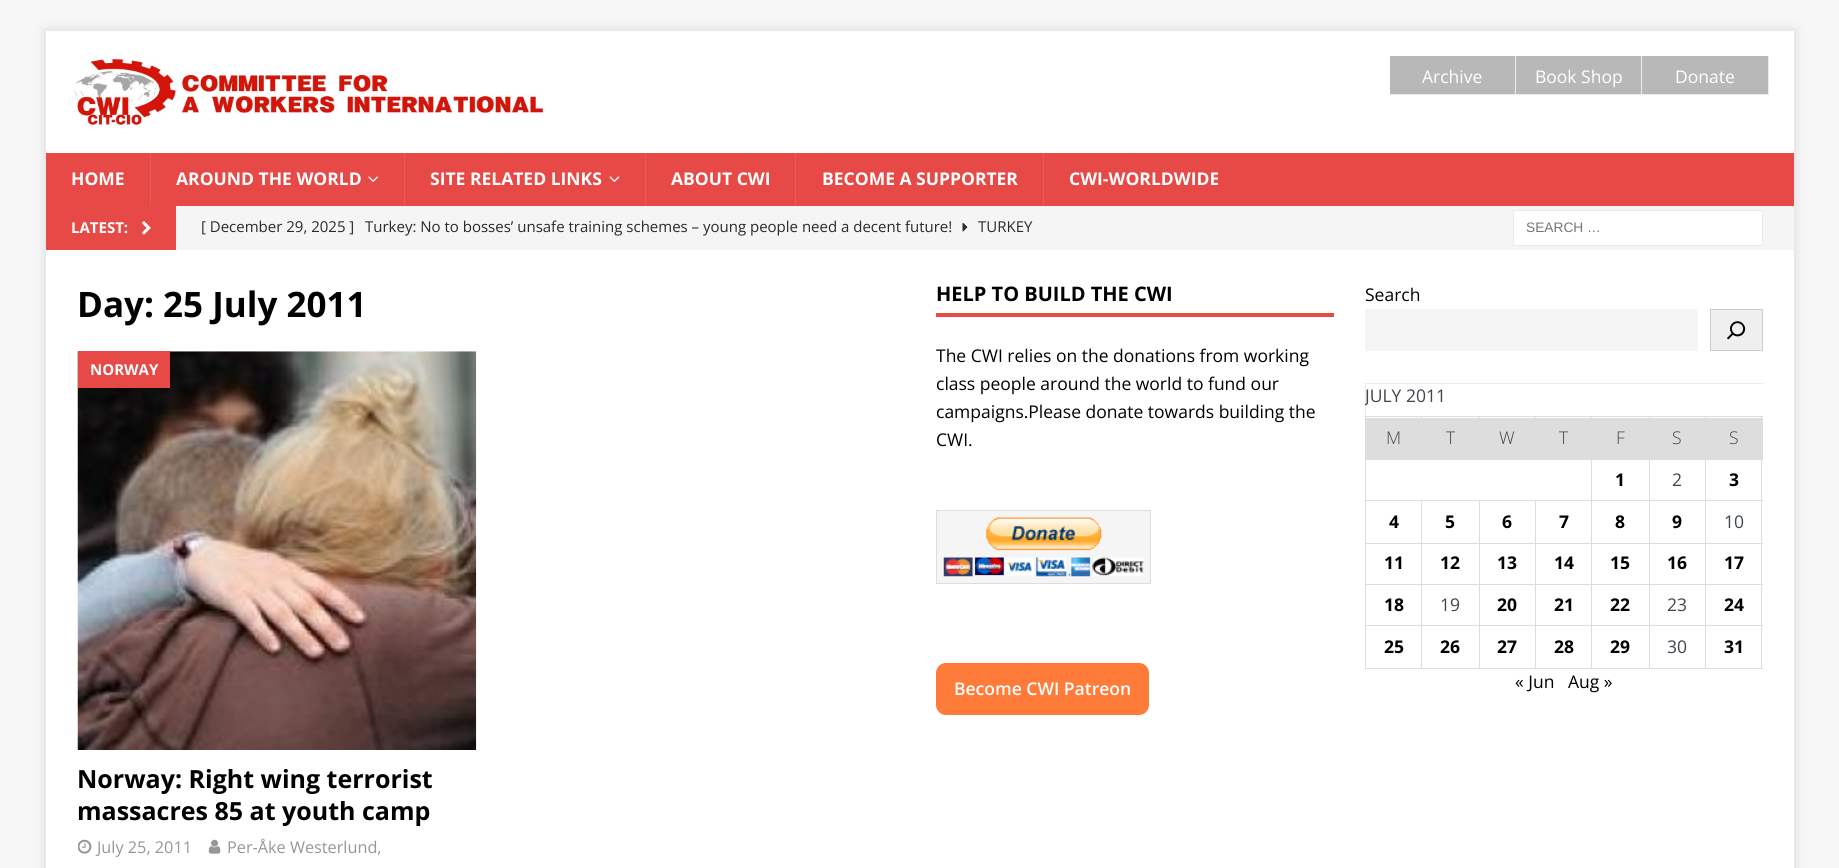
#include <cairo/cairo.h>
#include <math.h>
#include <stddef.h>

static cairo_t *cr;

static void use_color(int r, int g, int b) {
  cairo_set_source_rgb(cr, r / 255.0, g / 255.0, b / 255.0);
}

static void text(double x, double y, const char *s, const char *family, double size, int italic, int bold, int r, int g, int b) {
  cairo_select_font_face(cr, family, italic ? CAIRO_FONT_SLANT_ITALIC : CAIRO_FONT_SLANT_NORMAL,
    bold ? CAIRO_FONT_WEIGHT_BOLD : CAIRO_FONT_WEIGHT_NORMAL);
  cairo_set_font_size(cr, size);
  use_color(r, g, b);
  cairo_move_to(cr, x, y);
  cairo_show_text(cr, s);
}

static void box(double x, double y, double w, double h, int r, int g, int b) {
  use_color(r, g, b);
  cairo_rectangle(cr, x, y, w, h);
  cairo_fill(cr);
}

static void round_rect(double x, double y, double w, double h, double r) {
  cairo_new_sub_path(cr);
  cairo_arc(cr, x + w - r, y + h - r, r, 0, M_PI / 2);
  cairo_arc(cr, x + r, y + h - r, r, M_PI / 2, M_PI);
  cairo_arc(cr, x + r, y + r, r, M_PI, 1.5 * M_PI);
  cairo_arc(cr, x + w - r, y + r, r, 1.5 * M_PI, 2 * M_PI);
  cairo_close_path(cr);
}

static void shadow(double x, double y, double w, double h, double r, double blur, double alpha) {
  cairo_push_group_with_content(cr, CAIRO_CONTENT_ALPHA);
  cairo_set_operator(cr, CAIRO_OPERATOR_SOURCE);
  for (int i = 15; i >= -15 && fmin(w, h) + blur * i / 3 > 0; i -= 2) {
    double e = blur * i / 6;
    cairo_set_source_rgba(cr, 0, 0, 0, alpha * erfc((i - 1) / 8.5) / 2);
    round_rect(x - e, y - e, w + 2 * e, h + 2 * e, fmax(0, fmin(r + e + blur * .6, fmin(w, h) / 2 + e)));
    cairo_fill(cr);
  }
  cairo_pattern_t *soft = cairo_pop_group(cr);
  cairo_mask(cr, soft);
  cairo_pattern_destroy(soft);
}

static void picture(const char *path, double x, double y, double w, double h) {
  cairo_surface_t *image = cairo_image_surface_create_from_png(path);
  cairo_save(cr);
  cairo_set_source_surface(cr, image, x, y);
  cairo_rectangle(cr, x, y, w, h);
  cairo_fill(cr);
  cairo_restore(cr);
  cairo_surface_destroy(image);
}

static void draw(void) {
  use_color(247, 247, 247);
  cairo_paint(cr);
  use_color(50, 50, 50);
  shadow(46, 31, 1748, 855, 0, 6, 0.17);
  box(46, 31, 1748, 122, 255, 255, 255);
  picture("img_01.png", 74, 56, 470, 72);
  box(1390, 56, 125, 38, 184, 184, 184);
  box(1515, 56, 1, 39, 235, 235, 235);
  box(1390, 94, 126, 1, 235, 235, 235);
  box(1516, 56, 252, 38, 184, 184, 184);
  box(1641, 56, 1, 39, 235, 235, 235);
  box(1516, 94, 127, 1, 235, 235, 235);
  box(1768, 56, 1, 39, 235, 235, 235);
  box(1643, 94, 126, 1, 235, 235, 235);
  box(46, 153, 1748, 53, 230, 73, 70);
  box(150, 153, 1, 53, 233, 91, 89);
  picture("img_02.png", 368, 176, 10, 6);
  box(404, 153, 1, 53, 233, 91, 89);
  picture("img_03.png", 609, 176, 11, 6);
  box(645, 153, 1, 53, 233, 91, 89);
  box(795, 153, 1, 53, 233, 91, 89);
  box(1043, 153, 1, 53, 233, 91, 89);
  box(176, 206, 1618, 44, 245, 245, 245);
  box(46, 206, 130, 44, 230, 73, 70);
  picture("img_04.png", 142, 221, 9, 14);
  picture("img_05.png", 962, 222, 6, 10);
  use_color(255, 255, 255);
  cairo_rectangle(cr, 1513.5, 210.5, 249, 35);
  cairo_fill_preserve(cr);
  use_color(235, 235, 235);
  cairo_set_line_width(cr, 1);
  cairo_stroke(cr);
  box(46, 250, 1748, 618, 255, 255, 255);
  picture("img_06.png", 77, 351, 400, 399);
  box(78, 351, 92, 37, 230, 73, 70);
  picture("img_07.png", 78, 839, 14, 15);
  picture("img_08.png", 208, 839, 13, 15);
  box(936, 313, 398, 4, 230, 73, 70);
  use_color(245, 245, 245);
  cairo_rectangle(cr, 936.5, 510.5, 214, 73);
  cairo_fill_preserve(cr);
  use_color(221, 221, 221);
  cairo_stroke(cr);
  picture("img_09.png", 943, 517, 201, 60);
  use_color(255, 123, 58);
  round_rect(936, 663, 213, 52, 10);
  cairo_fill(cr);
  box(1365, 309, 333, 42, 245, 245, 245);
  use_color(239, 239, 239);
  cairo_rectangle(cr, 1710.5, 309.5, 52, 41);
  cairo_fill_preserve(cr);
  use_color(204, 204, 204);
  cairo_stroke(cr);
  picture("img_10.png", 1727, 321, 19, 19);
  box(1365, 383, 398, 1, 235, 235, 235);
  box(1365, 383, 1, 33, 235, 235, 235);
  box(1366, 418, 113, 41, 221, 221, 221);
  box(1705, 416, 58, 1, 221, 221, 221);
  box(1705, 459, 58, 1, 221, 221, 221);
  box(1705, 500, 58, 1, 221, 221, 221);
  box(1705, 543, 58, 1, 221, 221, 221);
  box(1705, 584, 58, 1, 221, 221, 221);
  box(1705, 625, 58, 1, 221, 221, 221);
  box(1761, 625, 1, 44, 221, 221, 221);
  box(1705, 668, 58, 1, 221, 221, 221);
  box(1705, 625, 1, 44, 221, 221, 221);
  box(1649, 625, 57, 1, 221, 221, 221);
  box(1705, 584, 1, 42, 221, 221, 221);
  box(1649, 584, 57, 1, 221, 221, 221);
  box(1705, 543, 1, 42, 221, 221, 221);
  box(1649, 543, 57, 1, 221, 221, 221);
  box(1705, 500, 1, 44, 221, 221, 221);
  box(1649, 500, 57, 1, 221, 221, 221);
  box(1705, 459, 1, 42, 221, 221, 221);
  box(1649, 459, 57, 1, 221, 221, 221);
  box(1705, 416, 1, 44, 221, 221, 221);
  box(1649, 416, 57, 1, 221, 221, 221);
  box(1649, 668, 57, 1, 221, 221, 221);
  box(1649, 625, 1, 44, 221, 221, 221);
  box(1591, 625, 59, 1, 221, 221, 221);
  box(1649, 584, 1, 42, 221, 221, 221);
  box(1591, 584, 59, 1, 221, 221, 221);
  box(1649, 543, 1, 42, 221, 221, 221);
  box(1591, 543, 59, 1, 221, 221, 221);
  box(1649, 500, 1, 44, 221, 221, 221);
  box(1591, 500, 59, 1, 221, 221, 221);
  box(1649, 459, 1, 42, 221, 221, 221);
  box(1591, 459, 59, 1, 221, 221, 221);
  box(1649, 416, 1, 44, 221, 221, 221);
  box(1591, 416, 59, 1, 221, 221, 221);
  box(1591, 416, 1, 2, 221, 221, 221);
  box(1535, 416, 58, 1, 221, 221, 221);
  box(1591, 668, 59, 1, 221, 221, 221);
  box(1591, 625, 1, 44, 221, 221, 221);
  box(1535, 625, 58, 1, 221, 221, 221);
  box(1591, 584, 1, 42, 221, 221, 221);
  box(1535, 584, 58, 1, 221, 221, 221);
  box(1591, 543, 1, 42, 221, 221, 221);
  box(1535, 543, 58, 1, 221, 221, 221);
  box(1591, 500, 1, 44, 221, 221, 221);
  box(1535, 500, 58, 1, 221, 221, 221);
  box(1591, 459, 1, 42, 221, 221, 221);
  box(1365, 459, 228, 1, 221, 221, 221);
  box(1535, 416, 1, 44, 221, 221, 221);
  box(1479, 416, 57, 1, 221, 221, 221);
  box(1479, 416, 1, 44, 221, 221, 221);
  box(1421, 416, 59, 1, 221, 221, 221);
  box(1421, 416, 1, 2, 221, 221, 221);
  box(1365, 416, 58, 1, 221, 221, 221);
  box(1535, 668, 58, 1, 221, 221, 221);
  box(1535, 625, 1, 44, 221, 221, 221);
  box(1479, 625, 57, 1, 221, 221, 221);
  box(1535, 584, 1, 42, 221, 221, 221);
  box(1479, 584, 57, 1, 221, 221, 221);
  box(1535, 543, 1, 42, 221, 221, 221);
  box(1479, 543, 57, 1, 221, 221, 221);
  box(1535, 500, 1, 44, 221, 221, 221);
  box(1479, 500, 57, 1, 221, 221, 221);
  box(1479, 668, 57, 1, 221, 221, 221);
  box(1479, 625, 1, 44, 221, 221, 221);
  box(1421, 625, 59, 1, 221, 221, 221);
  box(1479, 584, 1, 42, 221, 221, 221);
  box(1421, 584, 59, 1, 221, 221, 221);
  box(1479, 543, 1, 42, 221, 221, 221);
  box(1421, 543, 59, 1, 221, 221, 221);
  box(1479, 500, 1, 44, 221, 221, 221);
  box(1421, 500, 59, 1, 221, 221, 221);
  box(1421, 668, 59, 1, 221, 221, 221);
  box(1421, 625, 1, 44, 221, 221, 221);
  box(1365, 625, 58, 1, 221, 221, 221);
  box(1421, 584, 1, 42, 221, 221, 221);
  box(1365, 584, 58, 1, 221, 221, 221);
  box(1421, 543, 1, 42, 221, 221, 221);
  box(1365, 543, 58, 1, 221, 221, 221);
  box(1421, 500, 1, 44, 221, 221, 221);
  box(1365, 500, 58, 1, 221, 221, 221);
  box(1365, 668, 58, 1, 221, 221, 221);
  box(1365, 625, 1, 44, 221, 221, 221);
  box(1365, 584, 1, 42, 221, 221, 221);
  box(1365, 543, 1, 42, 221, 221, 221);
  box(1365, 500, 1, 44, 221, 221, 221);
  box(1365, 459, 1, 42, 221, 221, 221);
  box(1365, 416, 1, 44, 221, 221, 221);
  box(1480, 418, 55, 41, 221, 221, 221);
  box(1536, 418, 113, 41, 221, 221, 221);
  box(1650, 418, 55, 41, 221, 221, 221);
  box(1706, 418, 57, 41, 221, 221, 221);
  box(1761, 416, 1, 2, 221, 221, 221);
  box(1761, 584, 1, 42, 221, 221, 221);
  box(1761, 543, 1, 42, 221, 221, 221);
  box(1761, 500, 1, 44, 221, 221, 221);
  box(1761, 459, 1, 42, 221, 221, 221);
  text(1422, 83, "Archive", "Open Sans", 17.5, 0, 0, 255, 255, 255);
  text(1535, 83, "Book Shop", "Open Sans", 17.5, 0, 0, 255, 255, 255);
  text(1675, 83, "Donate", "Open Sans", 17.5, 0, 0, 255, 255, 255);
  text(71, 185, "HOME", "Open Sans", 17.5, 0, 1, 255, 255, 255);
  text(176, 185, "AROUND THE WORLD", "Open Sans", 17.5, 0, 1, 255, 255, 255);
  text(430, 185, "SITE RELATED LINKS", "Open Sans", 17.5, 0, 1, 255, 255, 255);
  text(671, 185, "ABOUT CWI", "Open Sans", 17.5, 0, 1, 255, 255, 255);
  text(822, 185, "BECOME A SUPPORTER", "Open Sans", 17.5, 0, 1, 255, 255, 255);
  text(1069, 185, "CWI-WORLDWIDE", "Open Sans", 17.5, 0, 1, 255, 255, 255);
  text(71, 233, "LATEST:", "Open Sans", 15, 0, 1, 255, 255, 255);
  text(201, 232, "[ December 29, 2025 ]", "Open Sans", 15, 0, 0, 42, 42, 42);
  text(365, 232, "Turkey: No to bosses’ unsafe training schemes – young people need a decent future!", "Open Sans", 15, 0, 0, 42, 42, 42);
  text(978, 232, "TURKEY", "Open Sans", 15, 0, 0, 42, 42, 42);
  text(1526, 232, "SEARCH …", "Liberation Sans", 13.75, 0, 0, 117, 117, 117);
  text(77, 317, "Day: 25 July 2011", "Open Sans", 35, 0, 1, 0, 0, 0);
  text(90, 375, "NORWAY", "Open Sans", 15, 0, 1, 255, 255, 255);
  text(77, 788, "Norway: Right wing terrorist", "Open Sans", 25, 0, 1, 0, 0, 0);
  text(77, 820, "massacres 85 at youth camp", "Open Sans", 25, 0, 1, 0, 0, 0);
  text(97, 853, "July 25, 2011", "Open Sans", 16.25, 0, 0, 151, 151, 151);
  text(227, 853, "Per-Åke Westerlund,", "Open Sans", 16.25, 0, 0, 151, 151, 151);
  text(936, 301, "HELP TO BUILD THE CWI", "Open Sans", 20, 0, 1, 0, 0, 0);
  text(936, 362, "The CWI relies on the donations from working", "Open Sans", 17.5, 0, 0, 0, 0, 0);
  text(936, 390, "class people around the world to fund our", "Open Sans", 17.5, 0, 0, 0, 0, 0);
  text(936, 418, "campaigns.Please donate towards building the", "Open Sans", 17.5, 0, 0, 0, 0, 0);
  text(936, 446, "CWI.", "Open Sans", 17.5, 0, 0, 0, 0, 0);
  text(954, 695, "Become CWI Patreon", "Open Sans SemiBold", 17.5, 0, 0, 255, 255, 255);
  text(1365, 301, "Search", "Open Sans", 17.5, 0, 0, 0, 0, 0);
  cairo_save(cr);
  cairo_rectangle(cr, 1365, 383, 398, 313);
  cairo_clip(cr);
  text(1365, 402, "JULY 2011", "Open Sans", 17.5, 0, 0, 64, 70, 77);
  cairo_restore(cr);
  text(1386, 444, "M", "Open Sans Light", 17.5, 0, 0, 64, 70, 77);
  text(1446, 444, "T", "Open Sans Light", 17.5, 0, 0, 64, 70, 77);
  text(1499, 444, "W", "Open Sans Light", 17.5, 0, 0, 64, 70, 77);
  text(1559, 444, "T", "Open Sans Light", 17.5, 0, 0, 64, 70, 77);
  text(1616, 444, "F", "Open Sans Light", 17.5, 0, 0, 64, 70, 77);
  text(1672, 444, "S", "Open Sans Light", 17.5, 0, 0, 64, 70, 77);
  text(1729, 444, "S", "Open Sans Light", 17.5, 0, 0, 64, 70, 77);
  text(1615, 486, "1", "Open Sans", 17.5, 0, 1, 0, 0, 0);
  text(1672, 486, "2", "Open Sans", 17.5, 0, 0, 64, 70, 77);
  text(1729, 486, "3", "Open Sans", 17.5, 0, 1, 0, 0, 0);
  text(1389, 528, "4", "Open Sans", 17.5, 0, 1, 0, 0, 0);
  text(1445, 528, "5", "Open Sans", 17.5, 0, 1, 0, 0, 0);
  text(1502, 528, "6", "Open Sans", 17.5, 0, 1, 0, 0, 0);
  text(1559, 528, "7", "Open Sans", 17.5, 0, 1, 0, 0, 0);
  text(1615, 528, "8", "Open Sans", 17.5, 0, 1, 0, 0, 0);
  text(1672, 528, "9", "Open Sans", 17.5, 0, 1, 0, 0, 0);
  text(1724, 528, "10", "Open Sans", 17.5, 0, 0, 64, 70, 77);
  text(1384, 569, "11", "Open Sans", 17.5, 0, 1, 0, 0, 0);
  text(1440, 569, "12", "Open Sans", 17.5, 0, 1, 0, 0, 0);
  text(1497, 569, "13", "Open Sans", 17.5, 0, 1, 0, 0, 0);
  text(1554, 569, "14", "Open Sans", 17.5, 0, 1, 0, 0, 0);
  text(1610, 569, "15", "Open Sans", 17.5, 0, 1, 0, 0, 0);
  text(1667, 569, "16", "Open Sans", 17.5, 0, 1, 0, 0, 0);
  text(1724, 569, "17", "Open Sans", 17.5, 0, 1, 0, 0, 0);
  text(1384, 611, "18", "Open Sans", 17.5, 0, 1, 0, 0, 0);
  text(1440, 611, "19", "Open Sans", 17.5, 0, 0, 64, 70, 77);
  text(1497, 611, "20", "Open Sans", 17.5, 0, 1, 0, 0, 0);
  text(1554, 611, "21", "Open Sans", 17.5, 0, 1, 0, 0, 0);
  text(1610, 611, "22", "Open Sans", 17.5, 0, 1, 0, 0, 0);
  text(1667, 611, "23", "Open Sans", 17.5, 0, 0, 64, 70, 77);
  text(1724, 611, "24", "Open Sans", 17.5, 0, 1, 0, 0, 0);
  text(1384, 653, "25", "Open Sans", 17.5, 0, 1, 0, 0, 0);
  text(1440, 653, "26", "Open Sans", 17.5, 0, 1, 0, 0, 0);
  text(1497, 653, "27", "Open Sans", 17.5, 0, 1, 0, 0, 0);
  text(1554, 653, "28", "Open Sans", 17.5, 0, 1, 0, 0, 0);
  text(1610, 653, "29", "Open Sans", 17.5, 0, 1, 0, 0, 0);
  text(1667, 653, "30", "Open Sans", 17.5, 0, 0, 64, 70, 77);
  text(1724, 653, "31", "Open Sans", 17.5, 0, 1, 0, 0, 0);
  text(1515, 688, "« Jun", "Open Sans", 17.5, 0, 0, 0, 0, 0);
  text(1568, 688, "Aug »", "Open Sans", 17.5, 0, 0, 0, 0, 0);
}

int main(void) {
  cairo_surface_t *surface = cairo_image_surface_create(CAIRO_FORMAT_RGB24, 1839, 868);
  cr = cairo_create(surface);
  cairo_font_options_t *options = cairo_font_options_create();
  cairo_font_options_set_hint_metrics(options, CAIRO_HINT_METRICS_OFF);
  cairo_font_options_set_hint_style(options, CAIRO_HINT_STYLE_NONE);
  cairo_set_font_options(cr, options);
  cairo_set_miter_limit(cr, 4);
  draw();
  cairo_surface_write_to_png(surface, "out.png");
  cairo_font_options_destroy(options);
  cairo_destroy(cr);
  cairo_surface_destroy(surface);
  return 0;
}
